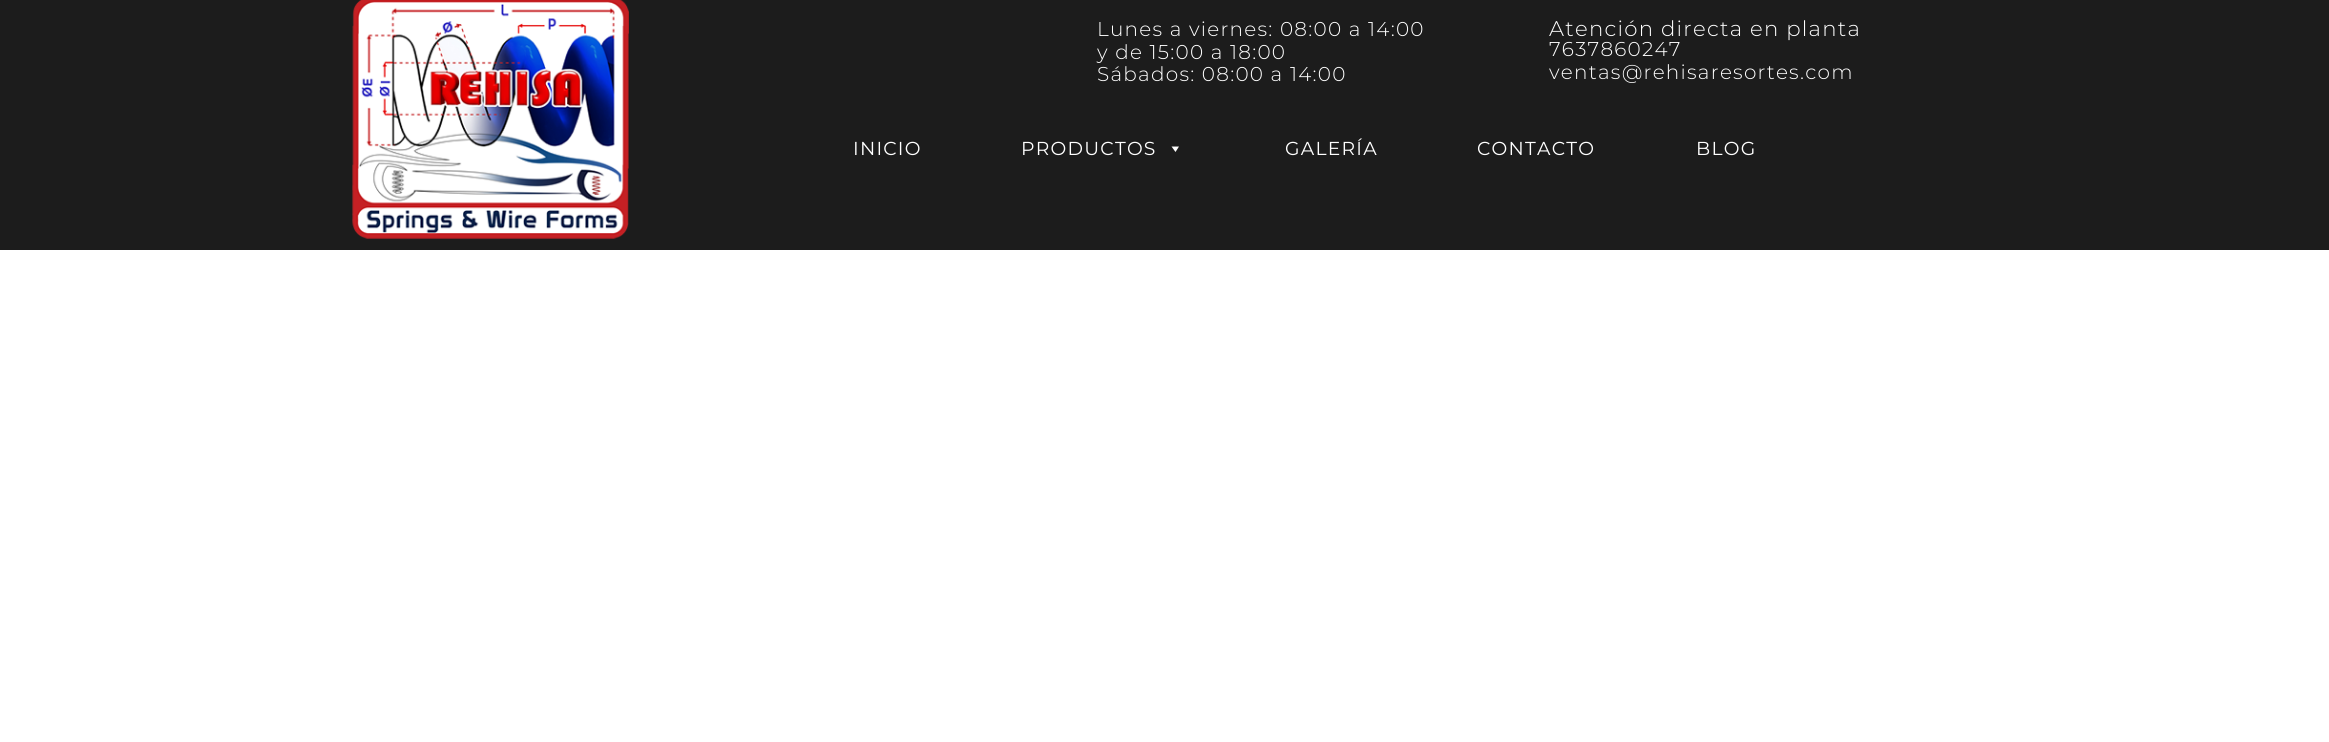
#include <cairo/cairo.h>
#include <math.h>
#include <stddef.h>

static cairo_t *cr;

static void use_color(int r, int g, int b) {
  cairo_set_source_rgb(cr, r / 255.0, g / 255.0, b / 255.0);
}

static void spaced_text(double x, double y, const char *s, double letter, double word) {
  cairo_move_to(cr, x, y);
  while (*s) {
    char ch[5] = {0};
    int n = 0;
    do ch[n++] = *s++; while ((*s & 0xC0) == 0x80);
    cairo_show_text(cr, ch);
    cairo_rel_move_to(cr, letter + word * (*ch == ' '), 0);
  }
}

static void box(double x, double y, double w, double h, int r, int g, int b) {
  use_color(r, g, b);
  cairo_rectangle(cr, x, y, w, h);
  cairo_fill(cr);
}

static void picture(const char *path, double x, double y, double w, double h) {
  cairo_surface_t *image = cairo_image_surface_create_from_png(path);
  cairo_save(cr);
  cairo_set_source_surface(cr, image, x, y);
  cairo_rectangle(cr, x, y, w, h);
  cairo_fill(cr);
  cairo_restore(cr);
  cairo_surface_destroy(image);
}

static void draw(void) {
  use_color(255, 255, 255);
  cairo_paint(cr);
  box(0, 0, 2329, 250, 28, 28, 28);
  picture("img_01.png", 352, 0, 277, 239);
  use_color(255, 255, 255);
  cairo_new_path(cr);
  cairo_move_to(cr, 1179, 146.5);
  cairo_line_to(cr, 1175.5, 152);
  cairo_line_to(cr, 1171.5, 146.5);
  cairo_close_path(cr);
  cairo_fill(cr);
  cairo_select_font_face(cr, "Montserrat Light", CAIRO_FONT_SLANT_NORMAL, CAIRO_FONT_WEIGHT_NORMAL);
  cairo_set_font_size(cr, 20);
  spaced_text(1097, 36, "Lunes a viernes: 08:00 a 14:00", 1.25, 0);
  spaced_text(1097, 59, "y de 15:00 a 18:00", 1.25, 0);
  spaced_text(1097, 81, "Sábados: 08:00 a 14:00", 1.25, 0);
  cairo_set_font_size(cr, 21.25);
  spaced_text(1549, 36, "Atención directa en planta", 1.25, 0);
  cairo_set_font_size(cr, 20);
  spaced_text(1549, 56, "7637860247", 1.25, 0);
  spaced_text(1549, 79, "ventas@rehisaresortes.com", 1.25, 0);
  cairo_select_font_face(cr, "Montserrat", CAIRO_FONT_SLANT_NORMAL, CAIRO_FONT_WEIGHT_NORMAL);
  cairo_set_font_size(cr, 18.75);
  spaced_text(853, 155, "INICIO", 1.25, 0);
  spaced_text(1021, 155, "PRODUCTOS", 1.25, 0);
  spaced_text(1285, 155, "GALERÍA", 1.25, 0);
  spaced_text(1477, 155, "CONTACTO", 1.25, 0);
  spaced_text(1696, 155, "BLOG", 1.25, 0);
}

int main(void) {
  cairo_surface_t *surface = cairo_image_surface_create(CAIRO_FORMAT_RGB24, 2329, 742);
  cr = cairo_create(surface);
  cairo_font_options_t *options = cairo_font_options_create();
  cairo_font_options_set_hint_metrics(options, CAIRO_HINT_METRICS_OFF);
  cairo_font_options_set_hint_style(options, CAIRO_HINT_STYLE_NONE);
  cairo_set_font_options(cr, options);
  cairo_set_miter_limit(cr, 4);
  draw();
  cairo_surface_write_to_png(surface, "out.png");
  cairo_font_options_destroy(options);
  cairo_destroy(cr);
  cairo_surface_destroy(surface);
  return 0;
}
